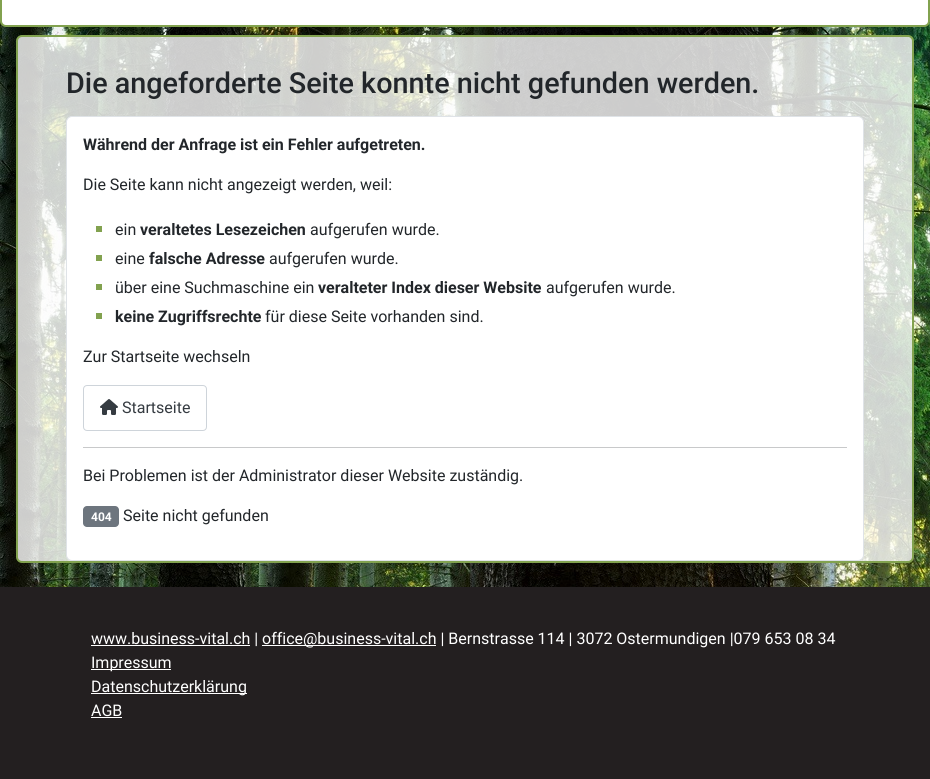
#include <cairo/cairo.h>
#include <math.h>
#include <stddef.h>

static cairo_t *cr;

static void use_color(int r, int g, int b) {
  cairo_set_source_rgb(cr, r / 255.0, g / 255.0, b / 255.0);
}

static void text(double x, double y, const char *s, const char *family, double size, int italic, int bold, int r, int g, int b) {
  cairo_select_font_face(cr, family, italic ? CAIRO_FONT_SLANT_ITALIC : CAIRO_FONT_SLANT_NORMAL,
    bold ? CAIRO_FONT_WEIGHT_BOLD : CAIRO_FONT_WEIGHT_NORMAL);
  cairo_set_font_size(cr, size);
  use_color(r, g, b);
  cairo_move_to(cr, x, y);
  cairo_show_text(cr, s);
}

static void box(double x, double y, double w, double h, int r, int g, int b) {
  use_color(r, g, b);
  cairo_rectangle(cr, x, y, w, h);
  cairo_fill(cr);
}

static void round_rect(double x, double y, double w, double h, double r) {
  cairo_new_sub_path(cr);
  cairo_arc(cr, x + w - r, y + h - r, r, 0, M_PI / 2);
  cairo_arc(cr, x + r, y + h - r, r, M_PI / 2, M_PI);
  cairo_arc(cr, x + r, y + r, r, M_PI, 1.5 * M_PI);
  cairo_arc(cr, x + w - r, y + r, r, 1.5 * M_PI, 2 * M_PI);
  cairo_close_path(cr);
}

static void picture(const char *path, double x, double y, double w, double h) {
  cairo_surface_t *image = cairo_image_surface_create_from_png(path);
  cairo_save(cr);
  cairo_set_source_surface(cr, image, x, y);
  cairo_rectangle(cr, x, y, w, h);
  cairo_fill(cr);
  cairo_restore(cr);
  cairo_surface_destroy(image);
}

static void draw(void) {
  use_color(255, 255, 255);
  cairo_paint(cr);
  picture("img_01.png", 0, 21, 930, 566);
  use_color(255, 255, 255);
  round_rect(1, -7, 928, 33, 5);
  cairo_fill_preserve(cr);
  use_color(130, 162, 79);
  cairo_stroke(cr);
  cairo_set_source_rgba(cr, 1, 1, 1, 0.8);
  round_rect(17, 36, 896, 526, 5);
  cairo_fill_preserve(cr);
  use_color(130, 162, 79);
  cairo_stroke(cr);
  use_color(255, 255, 255);
  round_rect(66.5, 116.5, 797, 444, 5.5);
  cairo_fill_preserve(cr);
  use_color(223, 227, 231);
  cairo_set_line_width(cr, 1);
  cairo_stroke(cr);
  box(96, 226, 6, 6, 130, 162, 79);
  box(96, 255, 6, 6, 130, 162, 79);
  box(96, 284, 6, 6, 130, 162, 79);
  box(96, 313, 6, 6, 130, 162, 79);
  round_rect(83.5, 385.5, 123, 45, 3.5);
  use_color(206, 212, 218);
  cairo_stroke(cr);
  picture("img_02.png", 100, 399, 18, 16);
  box(83, 447, 764, 1, 200, 201, 202);
  use_color(109, 117, 126);
  round_rect(83, 506, 36, 21, 4);
  cairo_fill(cr);
  box(0, 587, 930, 192, 35, 31, 32);
  box(91, 645, 159, 1, 255, 255, 255);
  box(262, 645, 174, 1, 255, 255, 255);
  box(91, 669, 80, 1, 255, 255, 255);
  box(91, 693, 156, 1, 255, 255, 255);
  box(91, 717, 31, 1, 255, 255, 255);
  text(66, 93, "Die angeforderte Seite konnte nicht gefunden werden.", "Roboto Medium", 28.8, 0, 0, 34, 38, 42);
  text(83, 150, "Während der Anfrage ist ein Fehler aufgetreten.", "Roboto", 16, 0, 1, 34, 38, 42);
  text(83, 190, "Die Seite kann nicht angezeigt werden, weil:", "Roboto", 16, 0, 0, 34, 38, 42);
  text(115, 235, "ein", "Roboto", 16, 0, 0, 34, 38, 42);
  text(140, 235, "veraltetes Lesezeichen", "Roboto", 16, 0, 1, 34, 38, 42);
  text(310, 235, "aufgerufen wurde.", "Roboto", 16, 0, 0, 34, 38, 42);
  text(115, 264, "eine", "Roboto", 16, 0, 0, 34, 38, 42);
  text(149, 264, "falsche Adresse", "Roboto", 16, 0, 1, 34, 38, 42);
  text(269, 264, "aufgerufen wurde.", "Roboto", 16, 0, 0, 34, 38, 42);
  text(115, 293, "über eine Suchmaschine ein", "Roboto", 16, 0, 0, 34, 38, 42);
  text(318, 293, "veralteter Index dieser Website", "Roboto", 16, 0, 1, 34, 38, 42);
  text(546, 293, "aufgerufen wurde.", "Roboto", 16, 0, 0, 34, 38, 42);
  text(115, 322, "keine Zugriffsrechte", "Roboto", 16, 0, 1, 34, 38, 42);
  text(265, 322, "für diese Seite vorhanden sind.", "Roboto", 16, 0, 0, 34, 38, 42);
  text(83, 362, "Zur Startseite wechseln", "Roboto", 16, 0, 0, 34, 38, 42);
  text(122, 413, "Startseite", "Roboto", 16, 0, 0, 53, 59, 65);
  text(83, 481, "Bei Problemen ist der Administrator dieser Website zuständig.", "Roboto", 16, 0, 0, 34, 38, 42);
  text(91, 521, "404", "Roboto", 12, 0, 1, 255, 255, 255);
  text(123, 521, "Seite nicht gefunden", "Roboto", 16, 0, 0, 34, 38, 42);
  text(91, 644, "www.business-vital.ch |", "Roboto", 16, 0, 0, 255, 255, 255);
  text(262, 644, "office@business-vital.ch | Bernstrasse 114 | 3072 Ostermundigen |079 653 08 34", "Roboto", 16, 0, 0, 255, 255, 255);
  text(91, 668, "Impressum", "Roboto", 16, 0, 0, 255, 255, 255);
  text(91, 692, "Datenschutzerklärung", "Roboto", 16, 0, 0, 255, 255, 255);
  text(91, 716, "AGB", "Roboto", 16, 0, 0, 255, 255, 255);
}

int main(void) {
  cairo_surface_t *surface = cairo_image_surface_create(CAIRO_FORMAT_RGB24, 930, 779);
  cr = cairo_create(surface);
  cairo_font_options_t *options = cairo_font_options_create();
  cairo_font_options_set_hint_metrics(options, CAIRO_HINT_METRICS_OFF);
  cairo_font_options_set_hint_style(options, CAIRO_HINT_STYLE_NONE);
  cairo_set_font_options(cr, options);
  cairo_set_miter_limit(cr, 4);
  draw();
  cairo_surface_write_to_png(surface, "out.png");
  cairo_font_options_destroy(options);
  cairo_destroy(cr);
  cairo_surface_destroy(surface);
  return 0;
}
